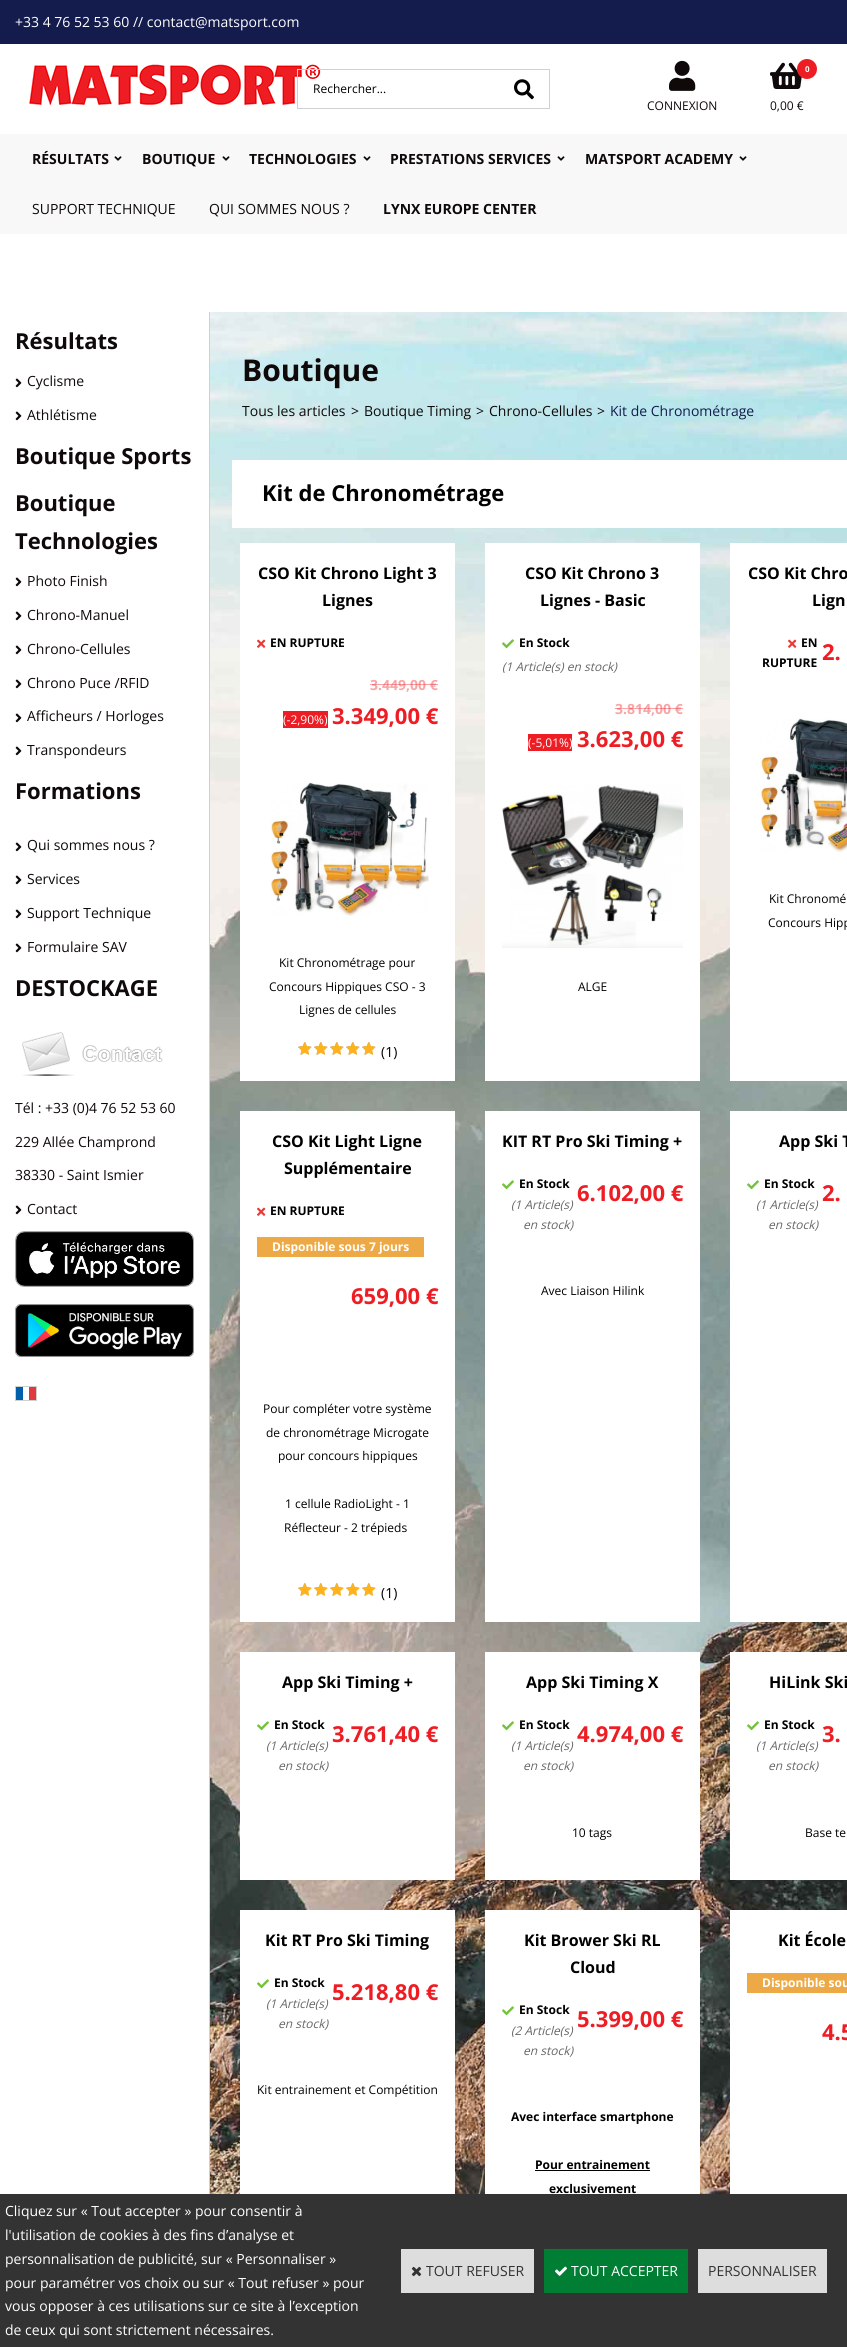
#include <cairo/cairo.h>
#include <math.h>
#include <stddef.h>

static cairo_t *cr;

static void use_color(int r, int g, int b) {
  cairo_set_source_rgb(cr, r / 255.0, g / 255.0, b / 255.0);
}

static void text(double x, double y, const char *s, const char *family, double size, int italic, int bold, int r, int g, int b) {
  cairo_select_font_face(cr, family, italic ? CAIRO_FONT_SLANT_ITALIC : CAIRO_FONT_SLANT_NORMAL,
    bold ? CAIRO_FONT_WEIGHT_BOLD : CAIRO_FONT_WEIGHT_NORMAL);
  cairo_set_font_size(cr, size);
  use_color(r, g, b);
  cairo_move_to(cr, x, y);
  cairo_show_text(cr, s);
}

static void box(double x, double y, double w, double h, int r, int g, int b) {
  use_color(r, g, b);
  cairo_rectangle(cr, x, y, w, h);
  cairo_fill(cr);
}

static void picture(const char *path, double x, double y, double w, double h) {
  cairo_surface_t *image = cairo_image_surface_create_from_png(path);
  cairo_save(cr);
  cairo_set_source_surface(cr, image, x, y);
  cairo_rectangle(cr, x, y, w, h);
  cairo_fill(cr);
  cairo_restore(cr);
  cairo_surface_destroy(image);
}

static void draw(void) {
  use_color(255, 255, 255);
  cairo_paint(cr);
  box(0, 0, 847, 44, 20, 27, 77);
  picture("img_01.png", 29, 64, 292, 41);
  box(297, 69, 253, 1, 208, 208, 208);
  box(297, 108, 202, 1, 208, 208, 208);
  box(297, 69, 1, 40, 208, 208, 208);
  box(549, 69, 1, 40, 208, 208, 208);
  box(499, 108, 51, 1, 208, 208, 208);
  picture("img_02.png", 514, 79, 20, 21);
  picture("img_03.png", 669, 60, 27, 31);
  picture("img_04.png", 770, 62, 32, 27);
  use_color(238, 29, 35);
  cairo_arc(cr, 807, 69, 10, 0, 2 * M_PI);
  cairo_fill(cr);
  box(0, 134, 847, 100, 248, 248, 248);
  picture("img_05.png", 114, 156, 8, 5);
  picture("img_05.png", 222, 156, 8, 5);
  picture("img_05.png", 363, 156, 8, 5);
  picture("img_05.png", 557, 156, 8, 5);
  picture("img_05.png", 739, 156, 8, 5);
  picture("img_06.png", 210, 312, 637, 1882);
  box(209, 312, 1, 1882, 208, 208, 208);
  picture("img_07.png", 15, 378, 7, 10);
  picture("img_07.png", 15, 411, 7, 10);
  picture("img_07.png", 15, 577, 7, 10);
  picture("img_07.png", 15, 611, 7, 10);
  picture("img_07.png", 15, 645, 7, 10);
  picture("img_07.png", 15, 679, 7, 10);
  picture("img_07.png", 15, 713, 7, 10);
  picture("img_07.png", 15, 746, 7, 10);
  picture("img_07.png", 15, 842, 7, 10);
  picture("img_07.png", 15, 875, 7, 10);
  picture("img_07.png", 15, 909, 7, 10);
  picture("img_07.png", 15, 943, 7, 10);
  picture("img_08.png", 22, 1032, 141, 44);
  picture("img_07.png", 15, 1205, 7, 10);
  picture("img_09.png", 15, 1231, 179, 56);
  picture("img_10.png", 15, 1304, 179, 53);
  picture("img_11.png", 16, 1387, 20, 13);
  cairo_rectangle(cr, 15.5, 1386.5, 21, 14);
  cairo_set_line_width(cr, 1);
  cairo_stroke(cr);
  box(232, 460, 615, 68, 255, 255, 255);
  box(240, 543, 215, 538, 255, 255, 255);
  picture("img_12.png", 257, 639, 9, 9);
  box(283, 711, 45, 17, 238, 29, 35);
  picture("img_13.png", 270, 782, 159, 134);
  picture("img_14.png", 298, 1042, 78, 13);
  picture("img_15.png", 298, 1042, 78, 13);
  box(485, 543, 215, 538, 255, 255, 255);
  picture("img_16.png", 502, 639, 12, 10);
  box(528, 734, 44, 17, 238, 29, 35);
  picture("img_17.png", 502, 785, 181, 163);
  box(730, 543, 117, 538, 255, 255, 255);
  picture("img_12.png", 788, 639, 9, 9);
  picture("img_18.png", 760, 718, 87, 134);
  box(240, 1111, 215, 511, 255, 255, 255);
  picture("img_12.png", 257, 1207, 9, 9);
  box(257, 1237, 167, 20, 238, 169, 71);
  picture("img_14.png", 298, 1583, 78, 13);
  picture("img_15.png", 298, 1583, 78, 13);
  box(485, 1111, 215, 511, 255, 255, 255);
  picture("img_16.png", 502, 1180, 12, 10);
  box(730, 1111, 117, 511, 255, 255, 255);
  picture("img_16.png", 747, 1180, 12, 10);
  box(240, 1652, 215, 228, 255, 255, 255);
  picture("img_16.png", 257, 1721, 12, 10);
  box(485, 1652, 215, 228, 255, 255, 255);
  picture("img_16.png", 502, 1721, 12, 10);
  box(730, 1652, 117, 228, 255, 255, 255);
  picture("img_16.png", 747, 1721, 12, 10);
  box(240, 1910, 215, 284, 255, 255, 255);
  picture("img_16.png", 257, 1979, 12, 10);
  box(485, 1910, 215, 284, 255, 255, 255);
  picture("img_16.png", 502, 2006, 12, 10);
  box(535, 2170, 115, 1, 0, 0, 0);
  box(730, 1910, 117, 284, 255, 255, 255);
  box(747, 1973, 100, 20, 238, 169, 71);
  box(0, 2194, 847, 153, 51, 51, 51);
  box(401, 2249, 133, 44, 221, 221, 221);
  picture("img_19.png", 411, 2266, 11, 11);
  box(544, 2249, 144, 44, 0, 126, 51);
  picture("img_20.png", 555, 2266, 12, 10);
  box(698, 2249, 129, 44, 221, 221, 221);
  text(15, 27, "+33 4 76 52 53 60 // contact@matsport.com", "Open Sans", 14, 0, 0, 255, 255, 255);
  text(313, 93, "Rechercher...", "Open Sans", 12, 0, 0, 0, 0, 0);
  text(647, 110, "CONNEXION", "Open Sans", 12, 0, 0, 15, 9, 9);
  text(805, 72, "0", "Open Sans", 8, 0, 1, 255, 255, 255);
  text(770, 110, "0,00 €", "Open Sans", 12, 0, 0, 15, 9, 9);
  text(32, 164, "RÉSULTATS", "Open Sans", 14, 0, 1, 15, 9, 9);
  text(142, 164, "BOUTIQUE", "Open Sans", 14, 0, 1, 15, 9, 9);
  text(249, 164, "TECHNOLOGIES", "Open Sans", 14, 0, 1, 15, 9, 9);
  text(390, 164, "PRESTATIONS SERVICES", "Open Sans", 14, 0, 1, 15, 9, 9);
  text(585, 164, "MATSPORT ACADEMY", "Open Sans", 14, 0, 1, 15, 9, 9);
  text(32, 214, "SUPPORT TECHNIQUE", "Open Sans", 14, 0, 0, 15, 9, 9);
  text(209, 214, "QUI SOMMES NOUS ?", "Open Sans", 14, 0, 0, 15, 9, 9);
  text(383, 214, "LYNX EUROPE CENTER", "Open Sans", 14, 0, 1, 15, 9, 9);
  text(15, 349, "Résultats", "Open Sans", 22, 0, 1, 15, 9, 9);
  text(27, 386, "Cyclisme", "Open Sans", 14, 0, 0, 15, 9, 9);
  text(27, 420, "Athlétisme", "Open Sans", 14, 0, 0, 15, 9, 9);
  text(15, 464, "Boutique Sports", "Open Sans", 22, 0, 1, 15, 9, 9);
  text(15, 511, "Boutique", "Open Sans", 22, 0, 1, 15, 9, 9);
  text(15, 549, "Technologies", "Open Sans", 22, 0, 1, 15, 9, 9);
  text(27, 586, "Photo Finish", "Open Sans", 14, 0, 0, 15, 9, 9);
  text(27, 620, "Chrono-Manuel", "Open Sans", 14, 0, 0, 15, 9, 9);
  text(27, 654, "Chrono-Cellules", "Open Sans", 14, 0, 0, 15, 9, 9);
  text(27, 688, "Chrono Puce /RFID", "Open Sans", 14, 0, 0, 15, 9, 9);
  text(27, 721, "Afficheurs / Horloges", "Open Sans", 14, 0, 0, 15, 9, 9);
  text(27, 755, "Transpondeurs", "Open Sans", 14, 0, 0, 15, 9, 9);
  text(15, 799, "Formations", "Open Sans", 22, 0, 1, 15, 9, 9);
  text(27, 850, "Qui sommes nous ?", "Open Sans", 14, 0, 0, 15, 9, 9);
  text(27, 884, "Services", "Open Sans", 14, 0, 0, 15, 9, 9);
  text(27, 918, "Support Technique", "Open Sans", 14, 0, 0, 15, 9, 9);
  text(27, 952, "Formulaire SAV", "Open Sans", 14, 0, 0, 15, 9, 9);
  text(15, 996, "DESTOCKAGE", "Open Sans", 22, 0, 1, 15, 9, 9);
  text(15, 1113, "Tél : +33 (0)4 76 52 53 60", "Open Sans", 14, 0, 0, 15, 9, 9);
  text(15, 1147, "229 Allée Champrond", "Open Sans", 14, 0, 0, 15, 9, 9);
  text(15, 1180, "38330 - Saint Ismier", "Open Sans", 14, 0, 0, 15, 9, 9);
  text(27, 1214, "Contact", "Open Sans", 14, 0, 0, 15, 9, 9);
  text(242, 381, "Boutique", "Open Sans", 30, 0, 1, 15, 9, 9);
  text(242, 416, "Tous les articles", "Open Sans", 14, 0, 0, 15, 9, 9);
  text(351, 416, ">", "Open Sans", 14, 0, 0, 15, 9, 9);
  text(364, 416, "Boutique Timing", "Open Sans", 14, 0, 0, 15, 9, 9);
  text(476, 416, ">", "Open Sans", 14, 0, 0, 15, 9, 9);
  text(489, 416, "Chrono-Cellules", "Open Sans", 14, 0, 0, 15, 9, 9);
  text(597, 416, ">", "Open Sans", 14, 0, 0, 15, 9, 9);
  text(610, 416, "Kit de Chronométrage", "Open Sans", 14, 0, 0, 20, 27, 77);
  text(262, 501, "Kit de Chronométrage", "Open Sans", 22, 0, 1, 0, 0, 0);
  text(258, 579, "CSO Kit Chrono Light 3", "Open Sans", 16, 0, 1, 0, 0, 0);
  text(322, 606, "Lignes", "Open Sans", 16, 0, 1, 0, 0, 0);
  text(270, 647, "EN RUPTURE", "Open Sans", 12, 0, 1, 0, 0, 0);
  text(370, 690, "3.449,00 €", "Open Sans", 14, 0, 1, 248, 165, 167);
  cairo_set_source_rgba(cr, 0.933, 0.114, 0.137, 0.4);
  cairo_rectangle(cr, 370, 684, 68, 1);
  cairo_fill(cr);
  text(283, 724, "(-2,90%)", "Open Sans", 12, 0, 0, 255, 255, 255);
  text(332, 724, "3.349,00 €", "Open Sans", 22, 0, 1, 238, 29, 35);
  text(279, 967, "Kit Chronométrage pour", "Open Sans", 12, 0, 0, 0, 0, 0);
  text(269, 991, "Concours Hippiques CSO - 3", "Open Sans", 12, 0, 0, 0, 0, 0);
  text(299, 1014, "Lignes de cellules", "Open Sans", 12, 0, 0, 0, 0, 0);
  text(381, 1057, "(1)", "Open Sans", 14, 0, 0, 0, 0, 0);
  text(525, 579, "CSO Kit Chrono 3", "Open Sans", 16, 0, 1, 0, 0, 0);
  text(540, 606, "Lignes - Basic", "Open Sans", 16, 0, 1, 0, 0, 0);
  text(519, 647, "En Stock", "Open Sans", 12, 0, 1, 0, 0, 0);
  text(502, 671, "(1 Article(s) en stock)", "Open Sans", 12, 1, 0, 102, 102, 102);
  text(615, 714, "3.814,00 €", "Open Sans", 14, 0, 1, 248, 165, 167);
  cairo_set_source_rgba(cr, 0.933, 0.114, 0.137, 0.4);
  cairo_rectangle(cr, 615, 708, 68, 1);
  cairo_fill(cr);
  text(528, 747, "(-5,01%)", "Open Sans", 12, 0, 0, 255, 255, 255);
  text(577, 747, "3.623,00 €", "Open Sans", 22, 0, 1, 238, 29, 35);
  text(578, 991, "ALGE", "Open Sans", 12, 0, 0, 0, 0, 0);
  text(748, 579, "CSO Kit Chro", "Open Sans", 16, 0, 1, 0, 0, 0);
  text(812, 606, "Lign", "Open Sans", 16, 0, 1, 0, 0, 0);
  text(801, 647, "EN", "Open Sans", 12, 0, 1, 0, 0, 0);
  text(762, 667, "RUPTURE", "Open Sans", 12, 0, 1, 0, 0, 0);
  text(822, 660, "2.", "Open Sans", 22, 0, 1, 238, 29, 35);
  text(769, 903, "Kit Chronomé", "Open Sans", 12, 0, 0, 0, 0, 0);
  text(768, 927, "Concours Hipp", "Open Sans", 12, 0, 0, 0, 0, 0);
  text(272, 1147, "CSO Kit Light Ligne", "Open Sans", 16, 0, 1, 0, 0, 0);
  text(284, 1174, "Supplémentaire", "Open Sans", 16, 0, 1, 0, 0, 0);
  text(270, 1215, "EN RUPTURE", "Open Sans", 12, 0, 1, 0, 0, 0);
  text(272, 1251, "Disponible sous 7 jours", "Open Sans", 12, 0, 1, 255, 255, 255);
  text(351, 1304, "659,00 €", "Open Sans", 22, 0, 1, 238, 29, 35);
  text(263, 1413, "Pour compléter votre système", "Open Sans", 12, 0, 0, 0, 0, 0);
  text(266, 1437, "de chronométrage Microgate", "Open Sans", 12, 0, 0, 0, 0, 0);
  text(278, 1460, "pour concours hippiques", "Open Sans", 12, 0, 0, 0, 0, 0);
  text(285, 1508, "1 cellule RadioLight - 1", "Open Sans", 12, 0, 0, 0, 0, 0);
  text(284, 1532, "Réflecteur - 2 trépieds", "Open Sans", 12, 0, 0, 0, 0, 0);
  text(381, 1598, "(1)", "Open Sans", 14, 0, 0, 0, 0, 0);
  text(502, 1147, "KIT RT Pro Ski Timing +", "Open Sans", 16, 0, 1, 0, 0, 0);
  text(519, 1188, "En Stock", "Open Sans", 12, 0, 1, 0, 0, 0);
  text(511, 1209, "(1 Article(s)", "Open Sans", 12, 1, 0, 102, 102, 102);
  text(523, 1229, "en stock)", "Open Sans", 12, 1, 0, 102, 102, 102);
  text(577, 1201, "6.102,00 €", "Open Sans", 22, 0, 1, 238, 29, 35);
  text(541, 1295, "Avec Liaison Hilink", "Open Sans", 12, 0, 0, 0, 0, 0);
  text(779, 1147, "App Ski T", "Open Sans", 16, 0, 1, 0, 0, 0);
  text(764, 1188, "En Stock", "Open Sans", 12, 0, 1, 0, 0, 0);
  text(756, 1209, "(1 Article(s)", "Open Sans", 12, 1, 0, 102, 102, 102);
  text(768, 1229, "en stock)", "Open Sans", 12, 1, 0, 102, 102, 102);
  text(822, 1201, "2.", "Open Sans", 22, 0, 1, 238, 29, 35);
  text(282, 1688, "App Ski Timing +", "Open Sans", 16, 0, 1, 0, 0, 0);
  text(274, 1729, "En Stock", "Open Sans", 12, 0, 1, 0, 0, 0);
  text(266, 1750, "(1 Article(s)", "Open Sans", 12, 1, 0, 102, 102, 102);
  text(278, 1770, "en stock)", "Open Sans", 12, 1, 0, 102, 102, 102);
  text(332, 1742, "3.761,40 €", "Open Sans", 22, 0, 1, 238, 29, 35);
  text(526, 1688, "App Ski Timing X", "Open Sans", 16, 0, 1, 0, 0, 0);
  text(519, 1729, "En Stock", "Open Sans", 12, 0, 1, 0, 0, 0);
  text(511, 1750, "(1 Article(s)", "Open Sans", 12, 1, 0, 102, 102, 102);
  text(523, 1770, "en stock)", "Open Sans", 12, 1, 0, 102, 102, 102);
  text(577, 1742, "4.974,00 €", "Open Sans", 22, 0, 1, 238, 29, 35);
  text(572, 1837, "10 tags", "Open Sans", 12, 0, 0, 0, 0, 0);
  text(769, 1688, "HiLink Ski", "Open Sans", 16, 0, 1, 0, 0, 0);
  text(764, 1729, "En Stock", "Open Sans", 12, 0, 1, 0, 0, 0);
  text(756, 1750, "(1 Article(s)", "Open Sans", 12, 1, 0, 102, 102, 102);
  text(768, 1770, "en stock)", "Open Sans", 12, 1, 0, 102, 102, 102);
  text(822, 1742, "3.", "Open Sans", 22, 0, 1, 238, 29, 35);
  text(805, 1837, "Base te", "Open Sans", 12, 0, 0, 0, 0, 0);
  text(265, 1946, "Kit RT Pro Ski Timing", "Open Sans", 16, 0, 1, 0, 0, 0);
  text(274, 1987, "En Stock", "Open Sans", 12, 0, 1, 0, 0, 0);
  text(266, 2008, "(1 Article(s)", "Open Sans", 12, 1, 0, 102, 102, 102);
  text(278, 2028, "en stock)", "Open Sans", 12, 1, 0, 102, 102, 102);
  text(332, 2000, "5.218,80 €", "Open Sans", 22, 0, 1, 238, 29, 35);
  text(257, 2094, "Kit entrainement et Compétition", "Open Sans", 12, 0, 0, 0, 0, 0);
  text(524, 1946, "Kit Brower Ski RL", "Open Sans", 16, 0, 1, 0, 0, 0);
  text(570, 1973, "Cloud", "Open Sans", 16, 0, 1, 0, 0, 0);
  text(519, 2014, "En Stock", "Open Sans", 12, 0, 1, 0, 0, 0);
  text(511, 2035, "(2 Article(s)", "Open Sans", 12, 1, 0, 102, 102, 102);
  text(523, 2055, "en stock)", "Open Sans", 12, 1, 0, 102, 102, 102);
  text(577, 2027, "5.399,00 €", "Open Sans", 22, 0, 1, 238, 29, 35);
  text(511, 2121, "Avec interface smartphone", "Open Sans", 12, 0, 1, 0, 0, 0);
  text(535, 2169, "Pour entrainement", "Open Sans", 12, 0, 1, 0, 0, 0);
  text(549, 2193, "exclusivement", "Open Sans", 12, 0, 1, 0, 0, 0);
  text(778, 1946, "Kit École", "Open Sans", 16, 0, 1, 0, 0, 0);
  text(762, 1987, "Disponible sou", "Open Sans", 12, 0, 1, 255, 255, 255);
  text(822, 2040, "4.5", "Open Sans", 22, 0, 1, 238, 29, 35);
  text(5, 2216, "Cliquez sur « Tout accepter » pour consentir à", "Open Sans", 14, 0, 0, 255, 255, 255);
  text(5, 2240, "l'utilisation de cookies à des fins d’analyse et", "Open Sans", 14, 0, 0, 255, 255, 255);
  text(5, 2264, "personnalisation de publicité, sur « Personnaliser »", "Open Sans", 14, 0, 0, 255, 255, 255);
  text(5, 2288, "pour paramétrer vos choix ou sur « Tout refuser » pour", "Open Sans", 14, 0, 0, 255, 255, 255);
  text(5, 2311, "vous opposer à ces utilisations sur ce site à l’exception", "Open Sans", 14, 0, 0, 255, 255, 255);
  text(5, 2335, "de ceux qui sont strictement nécessaires.", "Open Sans", 14, 0, 0, 255, 255, 255);
  text(426, 2276, "TOUT REFUSER", "Open Sans", 14, 0, 0, 51, 51, 51);
  text(571, 2276, "TOUT ACCEPTER", "Open Sans", 14, 0, 0, 255, 255, 255);
  text(708, 2276, "PERSONNALISER", "Open Sans", 14, 0, 0, 51, 51, 51);
}

int main(void) {
  cairo_surface_t *surface = cairo_image_surface_create(CAIRO_FORMAT_RGB24, 847, 2347);
  cr = cairo_create(surface);
  cairo_font_options_t *options = cairo_font_options_create();
  cairo_font_options_set_hint_metrics(options, CAIRO_HINT_METRICS_OFF);
  cairo_font_options_set_hint_style(options, CAIRO_HINT_STYLE_NONE);
  cairo_set_font_options(cr, options);
  cairo_set_miter_limit(cr, 4);
  draw();
  cairo_surface_write_to_png(surface, "out.png");
  cairo_font_options_destroy(options);
  cairo_destroy(cr);
  cairo_surface_destroy(surface);
  return 0;
}
